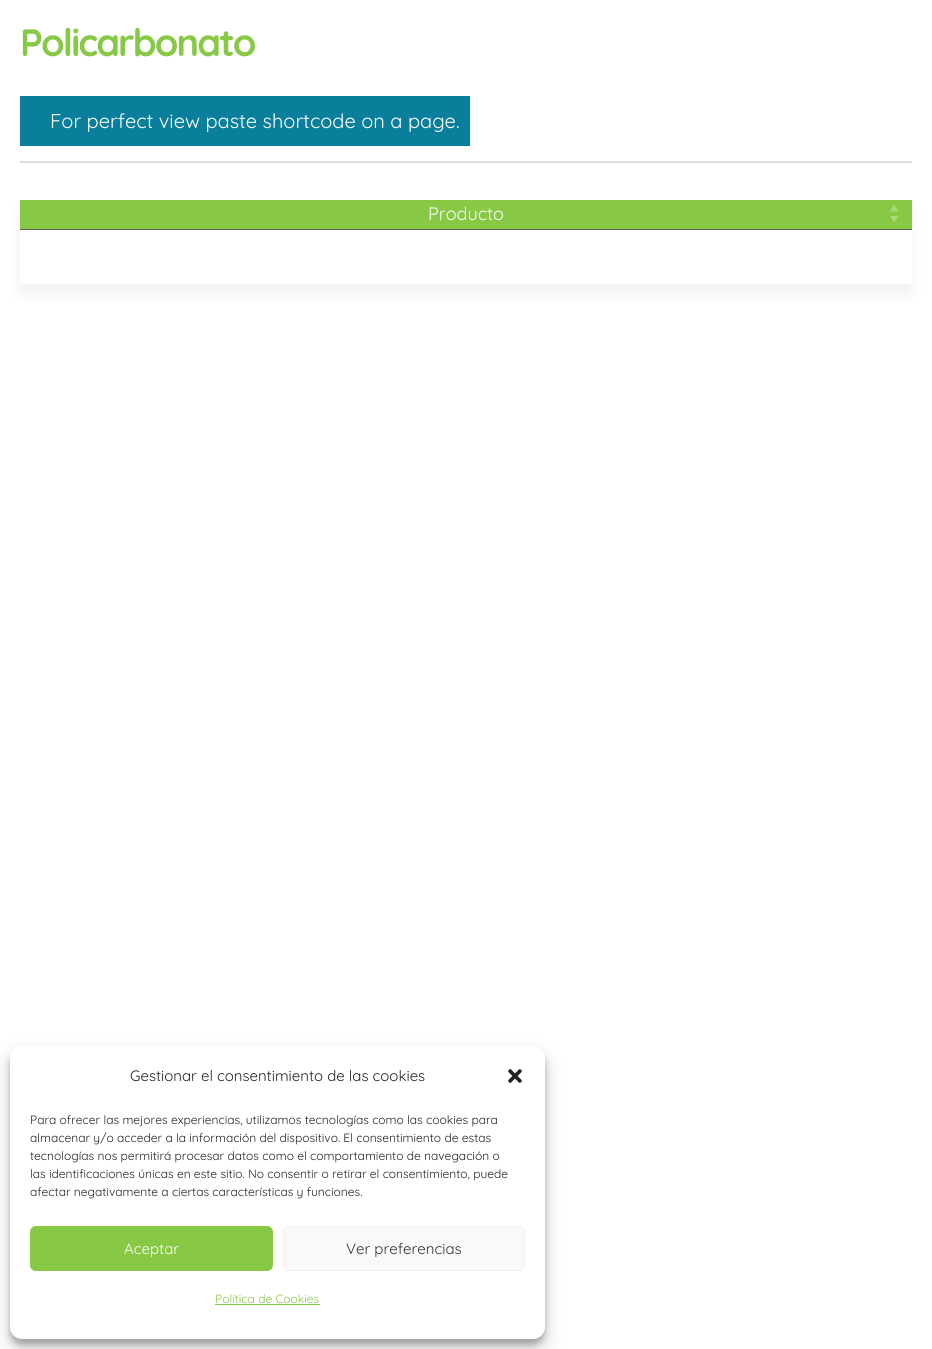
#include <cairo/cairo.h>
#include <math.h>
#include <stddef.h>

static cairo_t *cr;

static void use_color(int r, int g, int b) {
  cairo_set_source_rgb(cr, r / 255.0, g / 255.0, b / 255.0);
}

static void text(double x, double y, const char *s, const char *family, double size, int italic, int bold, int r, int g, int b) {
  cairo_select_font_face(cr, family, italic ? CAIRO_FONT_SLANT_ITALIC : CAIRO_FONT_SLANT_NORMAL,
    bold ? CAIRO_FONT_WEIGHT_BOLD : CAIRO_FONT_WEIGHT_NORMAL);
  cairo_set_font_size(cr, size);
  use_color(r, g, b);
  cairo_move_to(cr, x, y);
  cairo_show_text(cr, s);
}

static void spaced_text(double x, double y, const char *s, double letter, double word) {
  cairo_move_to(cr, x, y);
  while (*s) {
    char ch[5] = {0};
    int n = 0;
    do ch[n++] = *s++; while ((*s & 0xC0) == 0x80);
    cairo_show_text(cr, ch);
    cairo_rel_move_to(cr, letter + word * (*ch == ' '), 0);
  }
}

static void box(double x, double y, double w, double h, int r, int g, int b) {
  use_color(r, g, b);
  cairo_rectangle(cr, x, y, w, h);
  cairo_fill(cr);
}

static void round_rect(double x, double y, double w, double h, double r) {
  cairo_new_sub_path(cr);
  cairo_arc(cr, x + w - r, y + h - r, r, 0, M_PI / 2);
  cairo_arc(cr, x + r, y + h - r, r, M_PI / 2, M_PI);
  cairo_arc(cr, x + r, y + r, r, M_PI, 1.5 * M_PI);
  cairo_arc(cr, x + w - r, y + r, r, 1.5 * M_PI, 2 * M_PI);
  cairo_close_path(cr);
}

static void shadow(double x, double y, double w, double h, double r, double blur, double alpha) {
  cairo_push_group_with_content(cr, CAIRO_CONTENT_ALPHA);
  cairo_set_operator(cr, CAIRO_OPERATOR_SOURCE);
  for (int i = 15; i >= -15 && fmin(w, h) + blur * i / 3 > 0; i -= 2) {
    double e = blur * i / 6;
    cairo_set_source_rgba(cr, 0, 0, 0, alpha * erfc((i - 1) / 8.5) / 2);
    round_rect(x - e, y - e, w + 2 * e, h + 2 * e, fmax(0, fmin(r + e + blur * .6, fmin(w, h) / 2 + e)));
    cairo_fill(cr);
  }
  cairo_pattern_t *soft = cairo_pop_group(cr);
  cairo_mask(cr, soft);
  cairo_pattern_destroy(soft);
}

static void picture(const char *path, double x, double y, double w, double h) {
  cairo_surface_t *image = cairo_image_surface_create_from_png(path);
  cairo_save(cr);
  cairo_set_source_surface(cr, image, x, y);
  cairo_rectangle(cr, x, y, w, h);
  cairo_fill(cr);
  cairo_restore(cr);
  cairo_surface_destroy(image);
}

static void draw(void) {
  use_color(255, 255, 255);
  cairo_paint(cr);
  box(20, 161, 892, 2, 221, 221, 221);
  box(20, 96, 450, 50, 10, 127, 156);
  cairo_save(cr);
  cairo_set_fill_rule(cr, CAIRO_FILL_RULE_EVEN_ODD);
  cairo_new_path(cr);
  cairo_move_to(cr, 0, 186);
  cairo_line_to(cr, 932, 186);
  cairo_line_to(cr, 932, 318);
  cairo_line_to(cr, 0, 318);
  cairo_close_path(cr);
  cairo_move_to(cr, 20, 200);
  cairo_line_to(cr, 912, 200);
  cairo_line_to(cr, 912, 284);
  cairo_line_to(cr, 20, 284);
  cairo_close_path(cr);
  cairo_clip(cr);
  use_color(0, 0, 0);
  shadow(20, 210, 892, 84, 0, 7.5, 0.06);
  cairo_restore(cr);
  box(20, 229, 892, 1, 96, 96, 96);
  box(20, 200, 892, 29, 135, 200, 68);
  use_color(171, 217, 124);
  cairo_new_path(cr);
  cairo_move_to(cr, 894, 204.5);
  cairo_line_to(cr, 898.5, 211.5);
  cairo_line_to(cr, 890, 211.5);
  cairo_close_path(cr);
  cairo_move_to(cr, 894, 222.5);
  cairo_line_to(cr, 890, 216);
  cairo_line_to(cr, 898.5, 216);
  cairo_close_path(cr);
  cairo_fill(cr);
  use_color(0, 0, 0);
  shadow(10, 1052, 535, 293, 12, 3, 0.23);
  shadow(10, 1056, 535, 293, 12, 10, 0.19);
  use_color(255, 255, 255);
  round_rect(10, 1046, 535, 293, 12);
  cairo_fill(cr);
  picture("img_01.png", 508, 1069, 14, 14);
  use_color(135, 200, 68);
  round_rect(30.5, 1226.5, 242, 44, 5.5);
  cairo_fill_preserve(cr);
  cairo_set_line_width(cr, 1);
  cairo_stroke(cr);
  use_color(249, 249, 249);
  round_rect(283.5, 1226.5, 241, 44, 5.5);
  cairo_fill_preserve(cr);
  use_color(242, 242, 242);
  cairo_stroke(cr);
  box(215, 1304, 105, 1, 135, 200, 68);
  cairo_select_font_face(cr, "Quicksand", CAIRO_FONT_SLANT_NORMAL, CAIRO_FONT_WEIGHT_BOLD);
  cairo_set_font_size(cr, 38);
  spaced_text(20, 56, "Policarbonato", -1.9, 0);
  text(50, 128, "For perfect view paste shortcode on a page.", "Quicksand", 20, 0, 0, 255, 255, 255);
  text(428, 220, "Producto", "Quicksand", 18, 0, 0, 255, 255, 255);
  text(130, 1081, "Gestionar el consentimiento de las cookies", "Quicksand", 15, 0, 0, 34, 34, 34);
  text(30, 1124, "Para ofrecer las mejores experiencias, utilizamos tecnologías como las cookies para", "Quicksand", 12, 0, 0, 34, 34, 34);
  text(30, 1142, "almacenar y/o acceder a la información del dispositivo. El consentimiento de estas", "Quicksand", 12, 0, 0, 34, 34, 34);
  text(30, 1160, "tecnologías nos permitirá procesar datos como el comportamiento de navegación o", "Quicksand", 12, 0, 0, 34, 34, 34);
  text(30, 1178, "las identificaciones únicas en este sitio. No consentir o retirar el consentimiento, puede", "Quicksand", 12, 0, 0, 34, 34, 34);
  text(30, 1196, "afectar negativamente a ciertas características y funciones.", "Quicksand", 12, 0, 0, 34, 34, 34);
  text(124, 1254, "Aceptar", "Quicksand", 15, 0, 0, 255, 255, 255);
  text(346, 1254, "Ver preferencias", "Quicksand", 15, 0, 0, 51, 51, 51);
  text(215, 1303, "Política de Cookies", "Quicksand", 12, 0, 0, 135, 200, 68);
}

int main(void) {
  cairo_surface_t *surface = cairo_image_surface_create(CAIRO_FORMAT_RGB24, 932, 1349);
  cr = cairo_create(surface);
  cairo_font_options_t *options = cairo_font_options_create();
  cairo_font_options_set_hint_metrics(options, CAIRO_HINT_METRICS_OFF);
  cairo_font_options_set_hint_style(options, CAIRO_HINT_STYLE_NONE);
  cairo_set_font_options(cr, options);
  cairo_set_miter_limit(cr, 4);
  draw();
  cairo_surface_write_to_png(surface, "out.png");
  cairo_font_options_destroy(options);
  cairo_destroy(cr);
  cairo_surface_destroy(surface);
  return 0;
}
